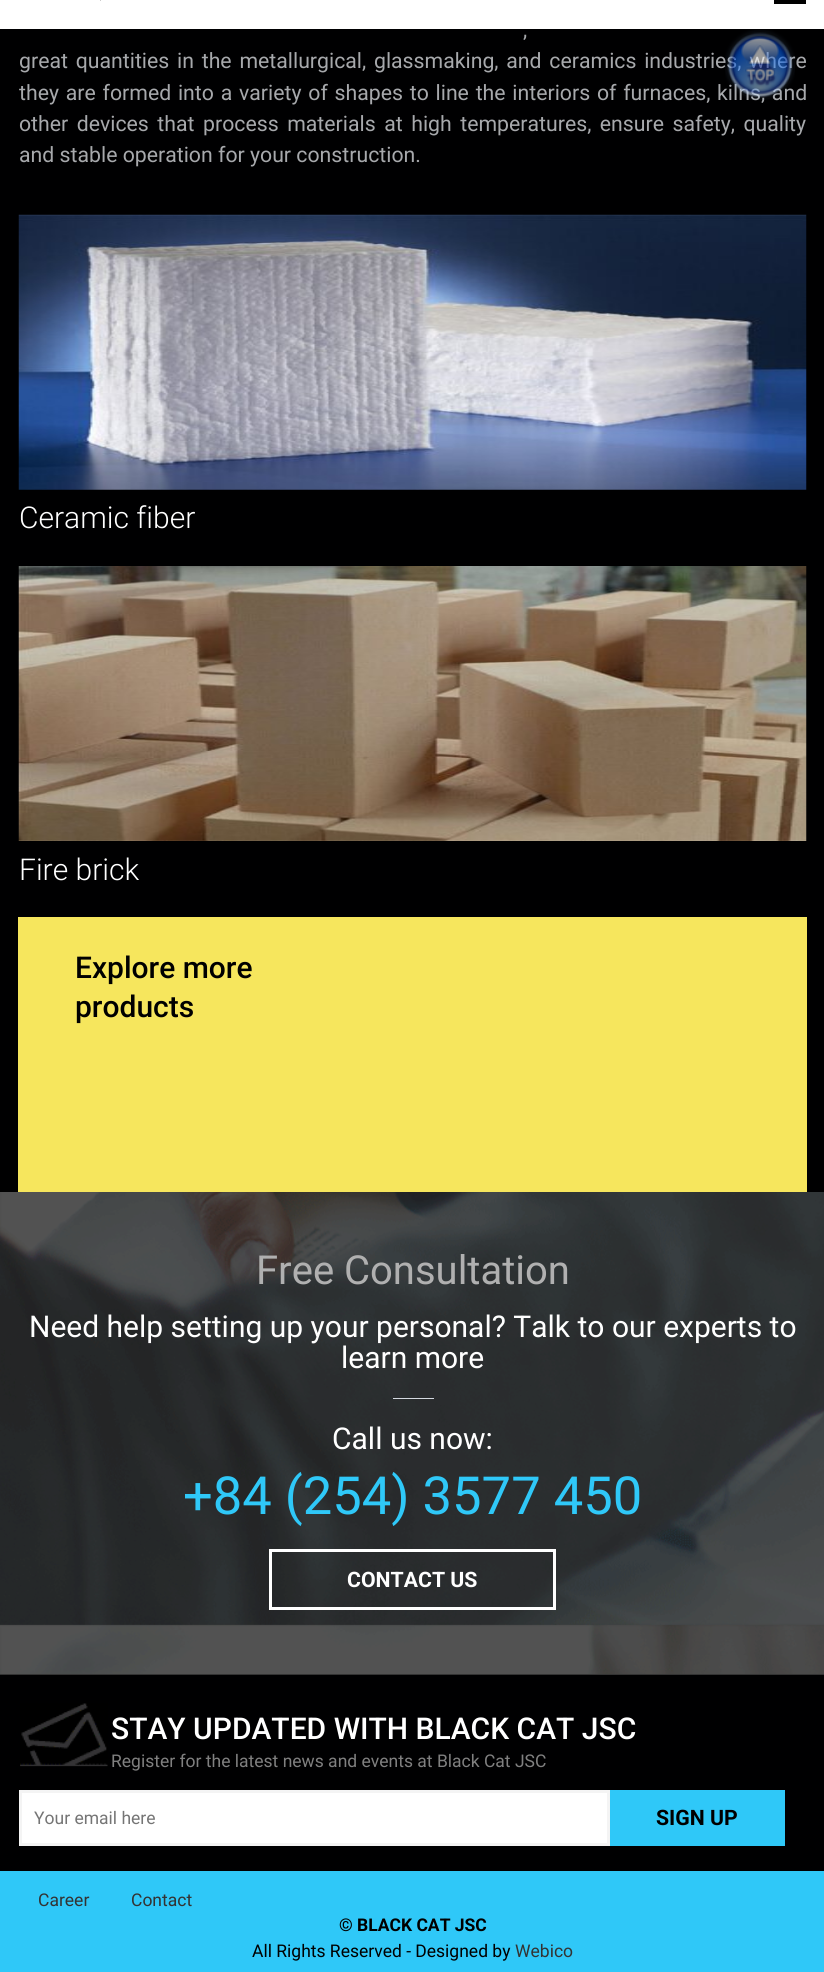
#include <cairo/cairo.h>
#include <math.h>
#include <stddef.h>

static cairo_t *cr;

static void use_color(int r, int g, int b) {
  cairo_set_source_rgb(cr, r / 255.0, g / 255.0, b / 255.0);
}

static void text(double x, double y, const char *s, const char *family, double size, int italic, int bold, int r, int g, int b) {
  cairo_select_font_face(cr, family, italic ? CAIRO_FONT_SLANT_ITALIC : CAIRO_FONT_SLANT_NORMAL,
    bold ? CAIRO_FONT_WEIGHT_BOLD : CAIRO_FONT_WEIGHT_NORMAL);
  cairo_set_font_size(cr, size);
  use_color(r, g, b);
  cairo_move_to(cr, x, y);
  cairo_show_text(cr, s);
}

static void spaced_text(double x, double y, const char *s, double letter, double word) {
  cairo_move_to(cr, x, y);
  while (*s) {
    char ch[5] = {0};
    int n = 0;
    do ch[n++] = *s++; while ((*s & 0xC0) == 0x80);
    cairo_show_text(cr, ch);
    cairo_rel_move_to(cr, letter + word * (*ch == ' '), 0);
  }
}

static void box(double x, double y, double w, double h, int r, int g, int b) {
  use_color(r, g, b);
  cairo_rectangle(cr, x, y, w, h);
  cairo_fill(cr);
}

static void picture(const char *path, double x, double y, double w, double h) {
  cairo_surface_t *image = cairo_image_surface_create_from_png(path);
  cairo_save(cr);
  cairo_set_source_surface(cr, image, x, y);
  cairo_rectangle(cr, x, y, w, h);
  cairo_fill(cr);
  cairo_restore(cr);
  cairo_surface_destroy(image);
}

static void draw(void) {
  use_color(0, 0, 1);
  cairo_paint(cr);
  box(0, 0, 824, 29, 255, 255, 255);
  box(100, 0, 1, 1, 204, 204, 204);
  box(774, 0, 32, 4, 0, 0, 0);
  picture("img_02.png", 18, 214, 789, 276);
  picture("img_03.png", 18, 566, 789, 275);
  box(18, 917, 789, 275, 246, 230, 93);
  picture("img_04.png", 0, 1192, 824, 482);
  box(393, 1398, 41, 1, 212, 217, 224);
  cairo_rectangle(cr, 270.5, 1550.5, 284, 58);
  use_color(255, 255, 255);
  cairo_set_line_width(cr, 3);
  cairo_stroke(cr);
  box(0, 1674, 824, 1, 51, 51, 51);
  picture("img_05.png", 20, 1703, 88, 64);
  use_color(255, 255, 255);
  cairo_rectangle(cr, 20.5, 1791.5, 588, 53);
  cairo_fill_preserve(cr);
  use_color(244, 244, 244);
  cairo_stroke(cr);
  box(610, 1790, 175, 56, 47, 200, 248);
  box(0, 1871, 824, 101, 47, 200, 248);
  cairo_select_font_face(cr, "Roboto", CAIRO_FONT_SLANT_NORMAL, CAIRO_FONT_WEIGHT_NORMAL);
  cairo_set_font_size(cr, 21.25);
  use_color(167, 169, 172);
  spaced_text(523, 37, ",", 0, 2);
  spaced_text(19, 68, "great quantities in the metallurgical, glassmaking, and ceramics industries, where", 0, 2.5);
  spaced_text(19, 100, "they are formed into a variety of shapes to line the interiors of furnaces, kilns, and", 0, 1.5);
  picture("img_01.png", 725, 30, 70, 70);
  spaced_text(19, 131, "other devices that process materials at high temperatures, ensure safety, quality", 0, 3.25);
  text(19, 162, "and stable operation for your construction.", "Roboto", 21.25, 0, 0, 167, 169, 172);
  text(19, 528, "Ceramic fiber", "Roboto Light", 30, 0, 0, 255, 255, 255);
  text(19, 880, "Fire brick", "Roboto Light", 30, 0, 0, 255, 255, 255);
  text(75, 978, "Explore more", "Roboto Medium", 30, 0, 0, 0, 0, 0);
  text(75, 1017, "products", "Roboto Medium", 30, 0, 0, 0, 0, 0);
  text(256, 1284, "Free Consultation", "Roboto", 40, 0, 0, 176, 176, 176);
  text(29, 1337, "Need help setting up your personal? Talk to our experts to", "Roboto", 30, 0, 0, 255, 255, 255);
  text(341, 1368, "learn more", "Roboto", 30, 0, 0, 255, 255, 255);
  text(332, 1449, "Call us now:", "Roboto", 30, 0, 0, 255, 255, 255);
  text(183, 1514, "+84 (254) 3577 450", "Roboto", 52.5, 0, 0, 47, 200, 248);
  text(347, 1587, "CONTACT US", "Roboto", 21.25, 0, 1, 255, 255, 255);
  text(111, 1739, "STAY UPDATED WITH BLACK CAT JSC", "Roboto Medium", 30, 0, 0, 255, 255, 255);
  text(111, 1767, "Register for the latest news and events at Black Cat JSC", "Roboto", 17.5, 0, 0, 128, 128, 128);
  text(34, 1824, "Your email here", "Roboto", 17.5, 0, 0, 117, 117, 117);
  text(656, 1825, "SIGN UP", "Roboto", 21.25, 0, 1, 0, 0, 0);
  text(38, 1906, "Career", "Roboto", 17.5, 0, 0, 51, 51, 51);
  text(131, 1906, "Contact", "Roboto", 17.5, 0, 0, 51, 51, 51);
  text(339, 1931, "© BLACK CAT JSC", "Roboto", 17.5, 0, 1, 0, 0, 0);
  text(252, 1957, "All Rights Reserved - Designed by", "Roboto", 17.5, 0, 0, 0, 0, 0);
  text(515, 1957, "Webico", "Roboto", 17.5, 0, 0, 51, 51, 51);
}

int main(void) {
  cairo_surface_t *surface = cairo_image_surface_create(CAIRO_FORMAT_RGB24, 824, 1972);
  cr = cairo_create(surface);
  cairo_font_options_t *options = cairo_font_options_create();
  cairo_font_options_set_hint_metrics(options, CAIRO_HINT_METRICS_OFF);
  cairo_font_options_set_hint_style(options, CAIRO_HINT_STYLE_NONE);
  cairo_set_font_options(cr, options);
  cairo_set_miter_limit(cr, 4);
  draw();
  cairo_surface_write_to_png(surface, "out.png");
  cairo_font_options_destroy(options);
  cairo_destroy(cr);
  cairo_surface_destroy(surface);
  return 0;
}
